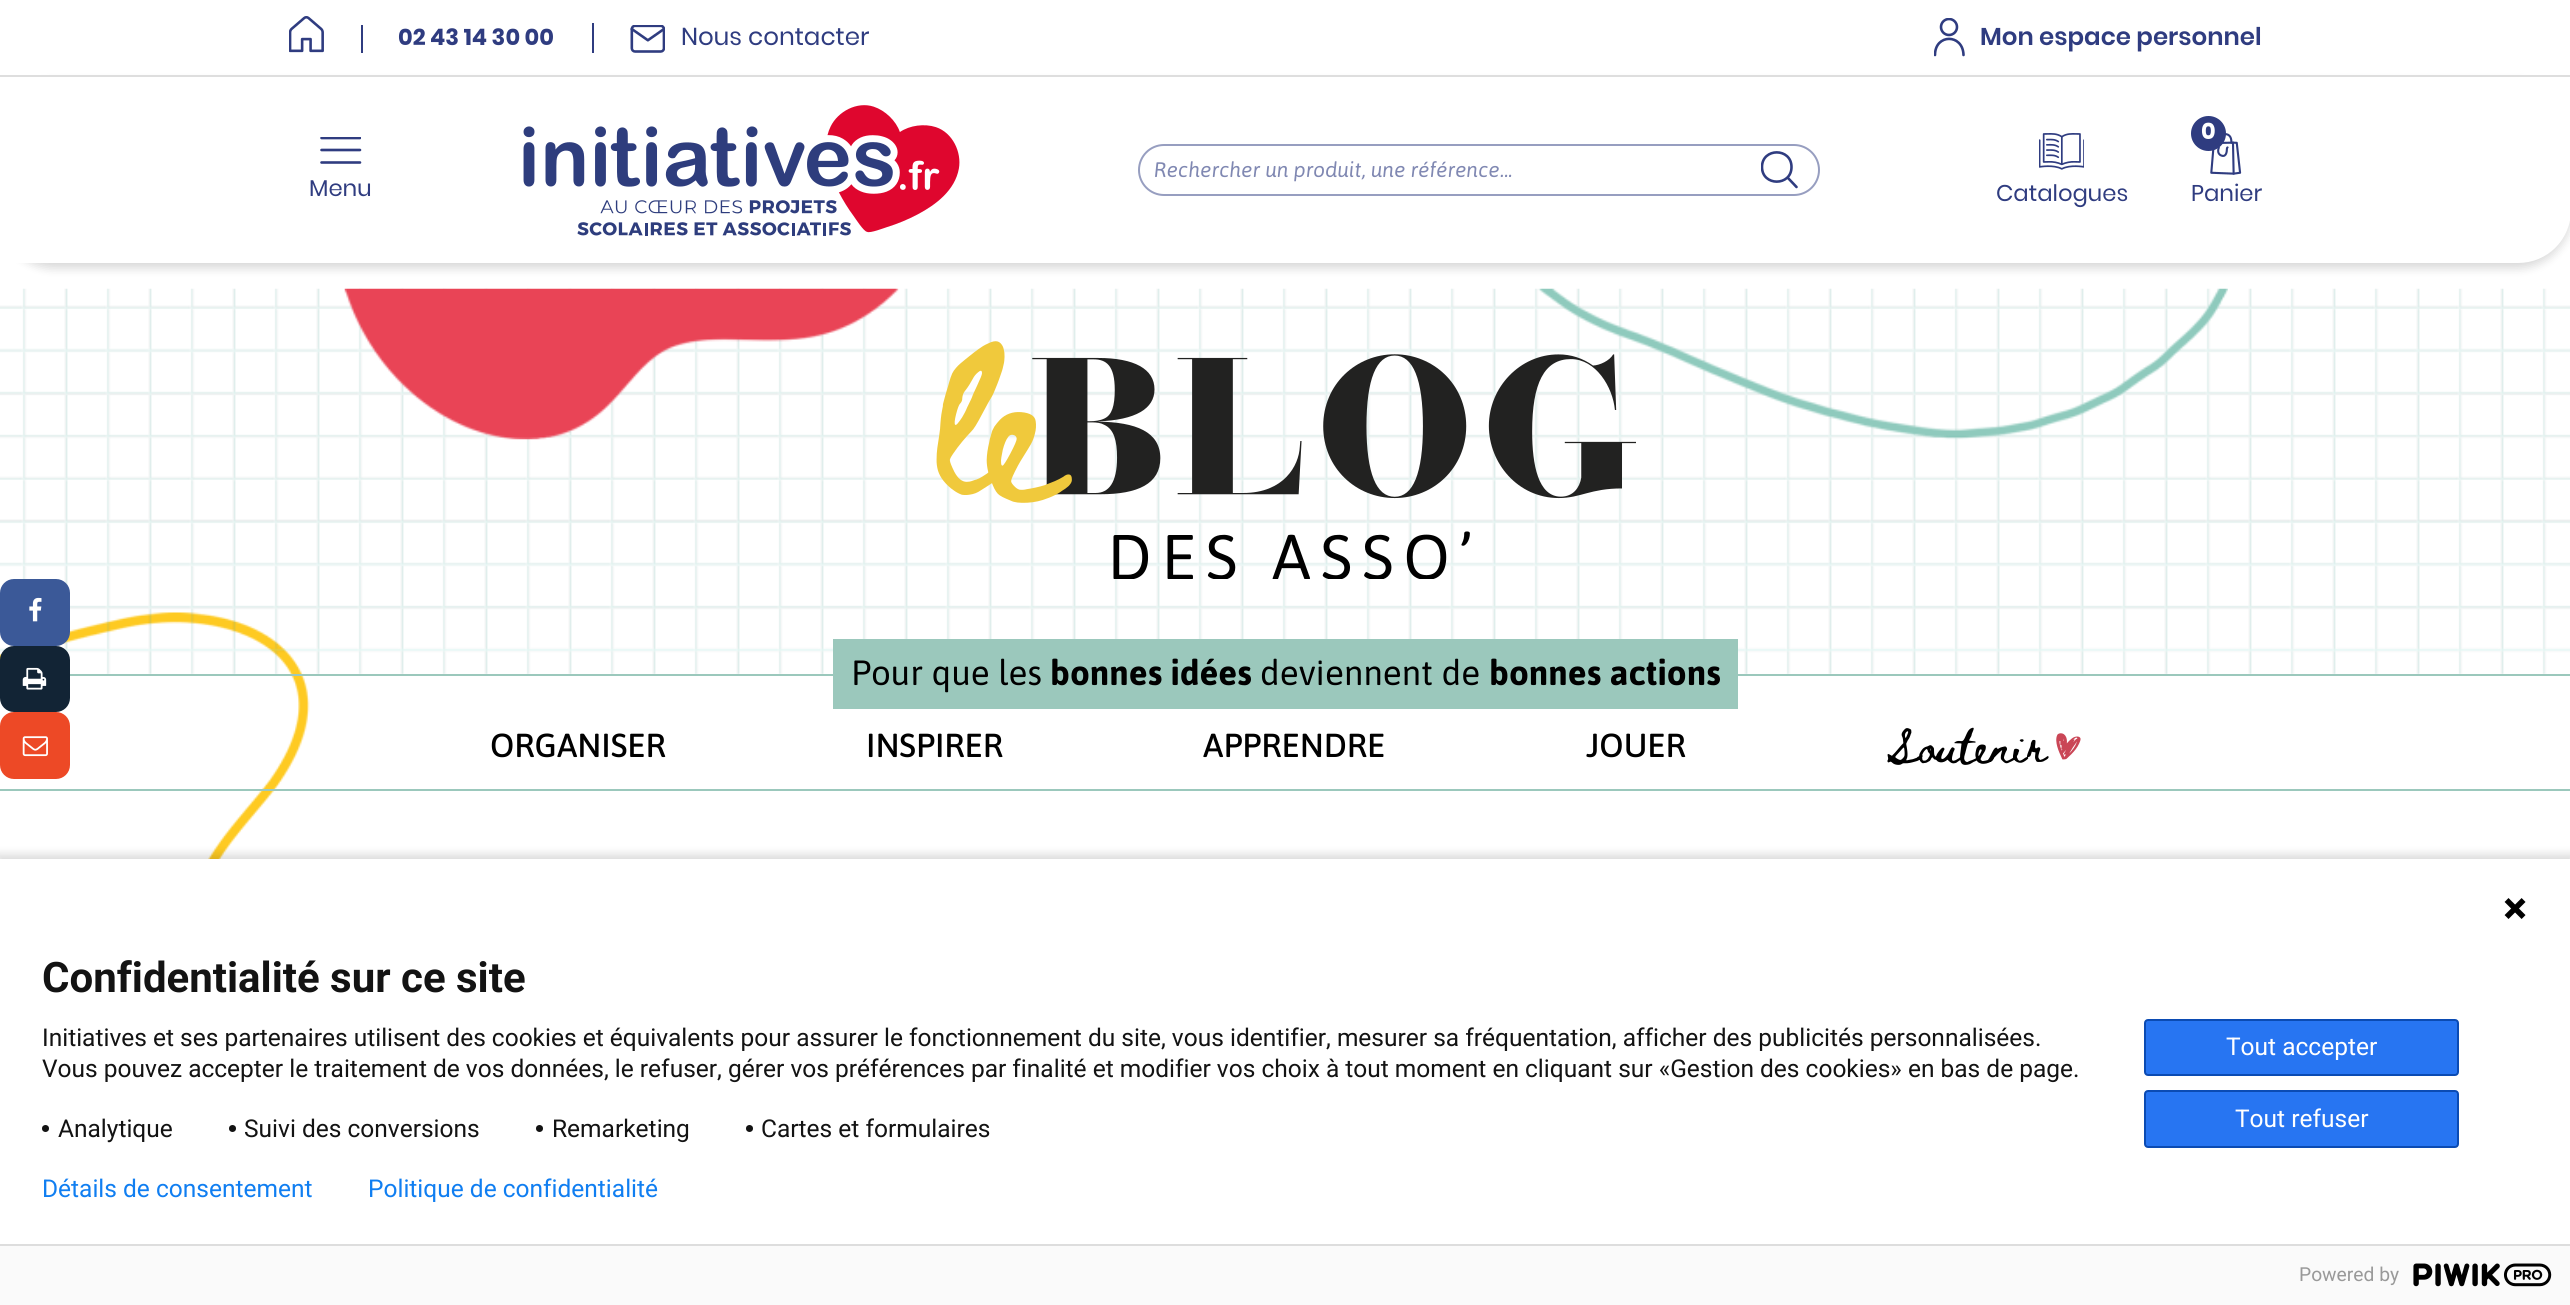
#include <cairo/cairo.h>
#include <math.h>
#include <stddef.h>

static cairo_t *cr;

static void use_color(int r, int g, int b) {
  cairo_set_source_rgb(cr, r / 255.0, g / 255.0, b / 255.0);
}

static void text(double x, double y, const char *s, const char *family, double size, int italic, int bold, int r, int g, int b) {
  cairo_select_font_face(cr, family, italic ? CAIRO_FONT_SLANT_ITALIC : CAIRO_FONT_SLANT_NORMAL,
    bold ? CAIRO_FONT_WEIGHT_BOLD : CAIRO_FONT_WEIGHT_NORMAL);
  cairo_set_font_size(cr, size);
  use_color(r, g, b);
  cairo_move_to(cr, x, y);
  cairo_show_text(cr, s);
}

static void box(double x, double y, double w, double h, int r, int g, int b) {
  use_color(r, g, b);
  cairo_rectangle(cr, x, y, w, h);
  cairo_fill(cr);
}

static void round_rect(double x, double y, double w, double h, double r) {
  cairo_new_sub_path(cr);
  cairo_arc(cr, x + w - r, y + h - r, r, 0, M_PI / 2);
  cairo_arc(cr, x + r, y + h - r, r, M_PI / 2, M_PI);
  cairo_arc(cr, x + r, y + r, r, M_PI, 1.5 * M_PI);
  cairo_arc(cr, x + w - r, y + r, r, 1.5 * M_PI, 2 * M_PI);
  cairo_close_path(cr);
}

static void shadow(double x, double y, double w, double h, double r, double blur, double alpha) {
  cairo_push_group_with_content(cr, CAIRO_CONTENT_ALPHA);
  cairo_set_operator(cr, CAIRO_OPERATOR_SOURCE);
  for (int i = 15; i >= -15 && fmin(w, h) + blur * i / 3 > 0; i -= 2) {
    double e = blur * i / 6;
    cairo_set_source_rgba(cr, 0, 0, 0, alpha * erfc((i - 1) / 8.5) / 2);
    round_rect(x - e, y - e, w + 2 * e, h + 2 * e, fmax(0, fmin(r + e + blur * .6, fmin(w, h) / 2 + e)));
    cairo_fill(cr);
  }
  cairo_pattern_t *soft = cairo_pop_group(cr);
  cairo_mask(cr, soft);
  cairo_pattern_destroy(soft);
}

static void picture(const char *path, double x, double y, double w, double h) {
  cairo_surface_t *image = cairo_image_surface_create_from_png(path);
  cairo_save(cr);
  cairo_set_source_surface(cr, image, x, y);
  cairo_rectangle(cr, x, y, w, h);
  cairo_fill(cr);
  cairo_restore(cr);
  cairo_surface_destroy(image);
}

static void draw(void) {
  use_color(255, 255, 255);
  cairo_paint(cr);
  picture("img_01.png", 289, 16, 35, 37);
  box(361, 25, 2, 28, 47, 60, 128);
  box(592, 23, 2, 30, 47, 60, 128);
  picture("img_02.png", 630, 25, 35, 28);
  cairo_save(cr);
  cairo_rectangle(cr, 1934, 18, 31, 40);
  cairo_clip(cr);
  cairo_arc(cr, 1949, 27, 8, 0, 2 * M_PI);
  cairo_set_line_width(cr, 2.6);
  cairo_stroke(cr);
  cairo_new_path(cr);
  cairo_move_to(cr, 1935, 55);
  cairo_curve_to(cr, 1935, 33.5, 1963, 33.5, 1963.5, 55);
  cairo_set_line_cap(cr, CAIRO_LINE_CAP_ROUND);
  cairo_set_line_join(cr, CAIRO_LINE_JOIN_ROUND);
  cairo_stroke(cr);
  cairo_restore(cr);
  use_color(0, 0, 0);
  shadow(0, 82, 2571, 186, 53, 5, 0.16);
  box(0, 75, 2570, 2, 222, 222, 222);
  use_color(255, 255, 255);
  cairo_new_path(cr);
  cairo_move_to(cr, 0, 77);
  cairo_line_to(cr, 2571, 77);
  cairo_line_to(cr, 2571, 210);
  cairo_curve_to(cr, 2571, 239.5, 2547.5, 263, 2518, 263);
  cairo_line_to(cr, 0, 263);
  cairo_close_path(cr);
  cairo_fill(cr);
  picture("img_03.png", 523, 105, 437, 131);
  round_rect(1139, 145, 680, 50, 25);
  use_color(151, 158, 192);
  cairo_stroke(cr);
  cairo_save(cr);
  cairo_rectangle(cr, 1761, 151, 38, 38);
  cairo_clip(cr);
  cairo_new_path(cr);
  cairo_move_to(cr, 1791.5, 167);
  cairo_curve_to(cr, 1791.5, 186.5, 1762, 186.5, 1762, 167);
  cairo_curve_to(cr, 1762, 147.5, 1791.5, 147.5, 1791.5, 167);
  cairo_close_path(cr);
  use_color(47, 60, 128);
  cairo_set_line_width(cr, 2.6);
  cairo_set_line_cap(cr, CAIRO_LINE_CAP_ROUND);
  cairo_set_line_join(cr, CAIRO_LINE_JOIN_ROUND);
  cairo_stroke(cr);
  cairo_restore(cr);
  cairo_new_path(cr);
  cairo_move_to(cr, 1796.5, 187);
  cairo_line_to(cr, 1788, 178);
  use_color(47, 60, 128);
  cairo_set_line_width(cr, 2.6);
  cairo_set_line_cap(cr, CAIRO_LINE_CAP_ROUND);
  cairo_set_line_join(cr, CAIRO_LINE_JOIN_ROUND);
  cairo_stroke(cr);
  picture("img_04.png", 2039, 133, 45, 37);
  picture("img_05.png", 2210, 133, 32, 42);
  cairo_arc(cr, 2208.5, 133.5, 17.5, 0, 2 * M_PI);
  cairo_fill(cr);
  cairo_new_path(cr);
  cairo_move_to(cr, 321.5, 150);
  cairo_line_to(cr, 360, 150);
  cairo_stroke(cr);
  cairo_save(cr);
  cairo_rectangle(cr, 320, 137, 41, 28);
  cairo_clip(cr);
  cairo_new_path(cr);
  cairo_move_to(cr, 321.5, 138);
  cairo_line_to(cr, 360, 138);
  cairo_stroke(cr);
  cairo_restore(cr);
  cairo_new_path(cr);
  cairo_move_to(cr, 321.5, 162.5);
  cairo_line_to(cr, 360, 162.5);
  cairo_stroke(cr);
  picture("img_09.png", 0, 612, 310, 247);
  picture("img_10.png", 0, 288, 2570, 386);
  use_color(59, 89, 152);
  round_rect(0, 579, 70, 67, 14);
  cairo_fill(cr);
  picture("img_06.png", 29, 597, 13, 25);
  use_color(18, 36, 53);
  round_rect(0, 646, 70, 66, 14);
  cairo_fill(cr);
  picture("img_07.png", 22, 667, 25, 23);
  use_color(237, 73, 38);
  round_rect(0, 712, 70, 67, 14);
  cairo_fill(cr);
  picture("img_08.png", 22, 736, 26, 21);
  picture("img_11.png", 936, 341, 700, 238);
  box(70, 674, 2500, 2, 155, 200, 188);
  box(833, 639, 905, 70, 155, 200, 188);
  box(0, 789, 2570, 2, 155, 200, 188);
  picture("img_12.png", 2056, 733, 25, 27);
  use_color(0, 0, 0);
  shadow(-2, 854, 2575, 450, 0, 4.5, 0.14);
  box(0, 859, 2570, 385, 255, 255, 255);
  picture("img_13.png", 2504, 898, 22, 21);
  use_color(19, 19, 19);
  cairo_arc(cr, 45.5, 1128.5, 3.5, 0, 2 * M_PI);
  cairo_fill(cr);
  cairo_arc(cr, 232.5, 1128.5, 3.5, 0, 2 * M_PI);
  cairo_fill(cr);
  cairo_arc(cr, 539.5, 1128.5, 3.5, 0, 2 * M_PI);
  cairo_fill(cr);
  cairo_arc(cr, 749.5, 1128.5, 3.5, 0, 2 * M_PI);
  cairo_fill(cr);
  use_color(39, 117, 242);
  round_rect(2145, 1020, 313, 55, 3);
  cairo_fill_preserve(cr);
  use_color(11, 75, 179);
  cairo_set_line_width(cr, 2);
  cairo_set_line_cap(cr, CAIRO_LINE_CAP_BUTT);
  cairo_set_line_join(cr, CAIRO_LINE_JOIN_MITER);
  cairo_stroke(cr);
  use_color(39, 117, 242);
  round_rect(2145, 1091, 313, 56, 3);
  cairo_fill_preserve(cr);
  use_color(11, 75, 179);
  cairo_stroke(cr);
  box(0, 1246, 2570, 59, 250, 250, 250);
  box(0, 1244, 2570, 2, 221, 221, 221);
  picture("img_14.png", 2413, 1263, 139, 24);
  text(398, 45, "02 43 14 30 00", "Poppins", 22.75, 0, 1, 47, 60, 128);
  text(681, 45, "Nous contacter", "Poppins", 24.5, 0, 0, 47, 60, 128);
  text(1980, 45, "Mon espace personnel", "Poppins SemiBold", 24.5, 0, 0, 47, 60, 128);
  text(1154, 177, "Rechercher un produit, une référence...", "Asap", 21, 1, 0, 128, 136, 178);
  text(1996, 201, "Catalogues", "Poppins", 22.75, 0, 0, 47, 60, 128);
  text(2201, 139, "0", "Poppins", 22.75, 0, 1, 255, 255, 255);
  text(2191, 201, "Panier", "Poppins", 22.75, 0, 0, 47, 60, 128);
  text(309, 196, "Menu", "Poppins", 22.75, 0, 0, 47, 60, 128);
  text(851, 685, "Pour que les", "Asap", 35, 0, 0, 0, 0, 0);
  text(1050, 685, "bonnes idées", "Asap", 35, 0, 1, 0, 0, 0);
  text(1260, 685, "deviennent de", "Asap", 35, 0, 0, 0, 0, 0);
  text(1489, 685, "bonnes actions", "Asap", 35, 0, 1, 0, 0, 0);
  text(490, 757, "ORGANISER", "Asap Medium", 33.25, 0, 0, 0, 0, 0);
  text(866, 757, "INSPIRER", "Asap Medium", 33.25, 0, 0, 0, 0, 0);
  text(1203, 757, "APPRENDRE", "Asap Medium", 33.25, 0, 0, 0, 0, 0);
  text(1586, 757, "JOUER", "Asap Medium", 33.25, 0, 0, 0, 0, 0);
  text(1886, 762, "Soutenir", "Beth Ellen", 33.25, 0, 0, 0, 0, 0);
  text(42, 992, "Confidentialité sur ce site", "Roboto", 42, 0, 1, 19, 19, 19);
  text(42, 1046, "Initiatives et ses partenaires utilisent des cookies et équivalents pour assurer le fonctionnement du site, vous identifier, mesurer sa fréquentation, afficher des publicités personnalisées.", "Roboto", 24.5, 0, 0, 19, 19, 19);
  text(42, 1077, "Vous pouvez accepter le traitement de vos données, le refuser, gérer vos préférences par finalité et modifier vos choix à tout moment en cliquant sur «Gestion des cookies» en bas de page.", "Roboto", 24.5, 0, 0, 19, 19, 19);
  text(58, 1137, "Analytique", "Roboto", 24.5, 0, 0, 19, 19, 19);
  text(244, 1137, "Suivi des conversions", "Roboto", 24.5, 0, 0, 19, 19, 19);
  text(552, 1137, "Remarketing", "Roboto", 24.5, 0, 0, 19, 19, 19);
  text(761, 1137, "Cartes et formulaires", "Roboto", 24.5, 0, 0, 19, 19, 19);
  text(2226, 1055, "Tout accepter", "Roboto", 24.5, 0, 0, 255, 255, 255);
  text(2235, 1127, "Tout refuser", "Roboto", 24.5, 0, 0, 255, 255, 255);
  text(42, 1197, "Détails de consentement", "Roboto", 24.5, 0, 0, 16, 126, 241);
  text(368, 1197, "Politique de confidentialité", "Roboto", 24.5, 0, 0, 16, 126, 241);
  text(2299, 1281, "Powered by", "Roboto", 19.25, 0, 0, 153, 153, 153);
}

int main(void) {
  cairo_surface_t *surface = cairo_image_surface_create(CAIRO_FORMAT_RGB24, 2570, 1305);
  cr = cairo_create(surface);
  cairo_font_options_t *options = cairo_font_options_create();
  cairo_font_options_set_hint_metrics(options, CAIRO_HINT_METRICS_OFF);
  cairo_font_options_set_hint_style(options, CAIRO_HINT_STYLE_NONE);
  cairo_set_font_options(cr, options);
  cairo_set_miter_limit(cr, 4);
  draw();
  cairo_surface_write_to_png(surface, "out.png");
  cairo_font_options_destroy(options);
  cairo_destroy(cr);
  cairo_surface_destroy(surface);
  return 0;
}
